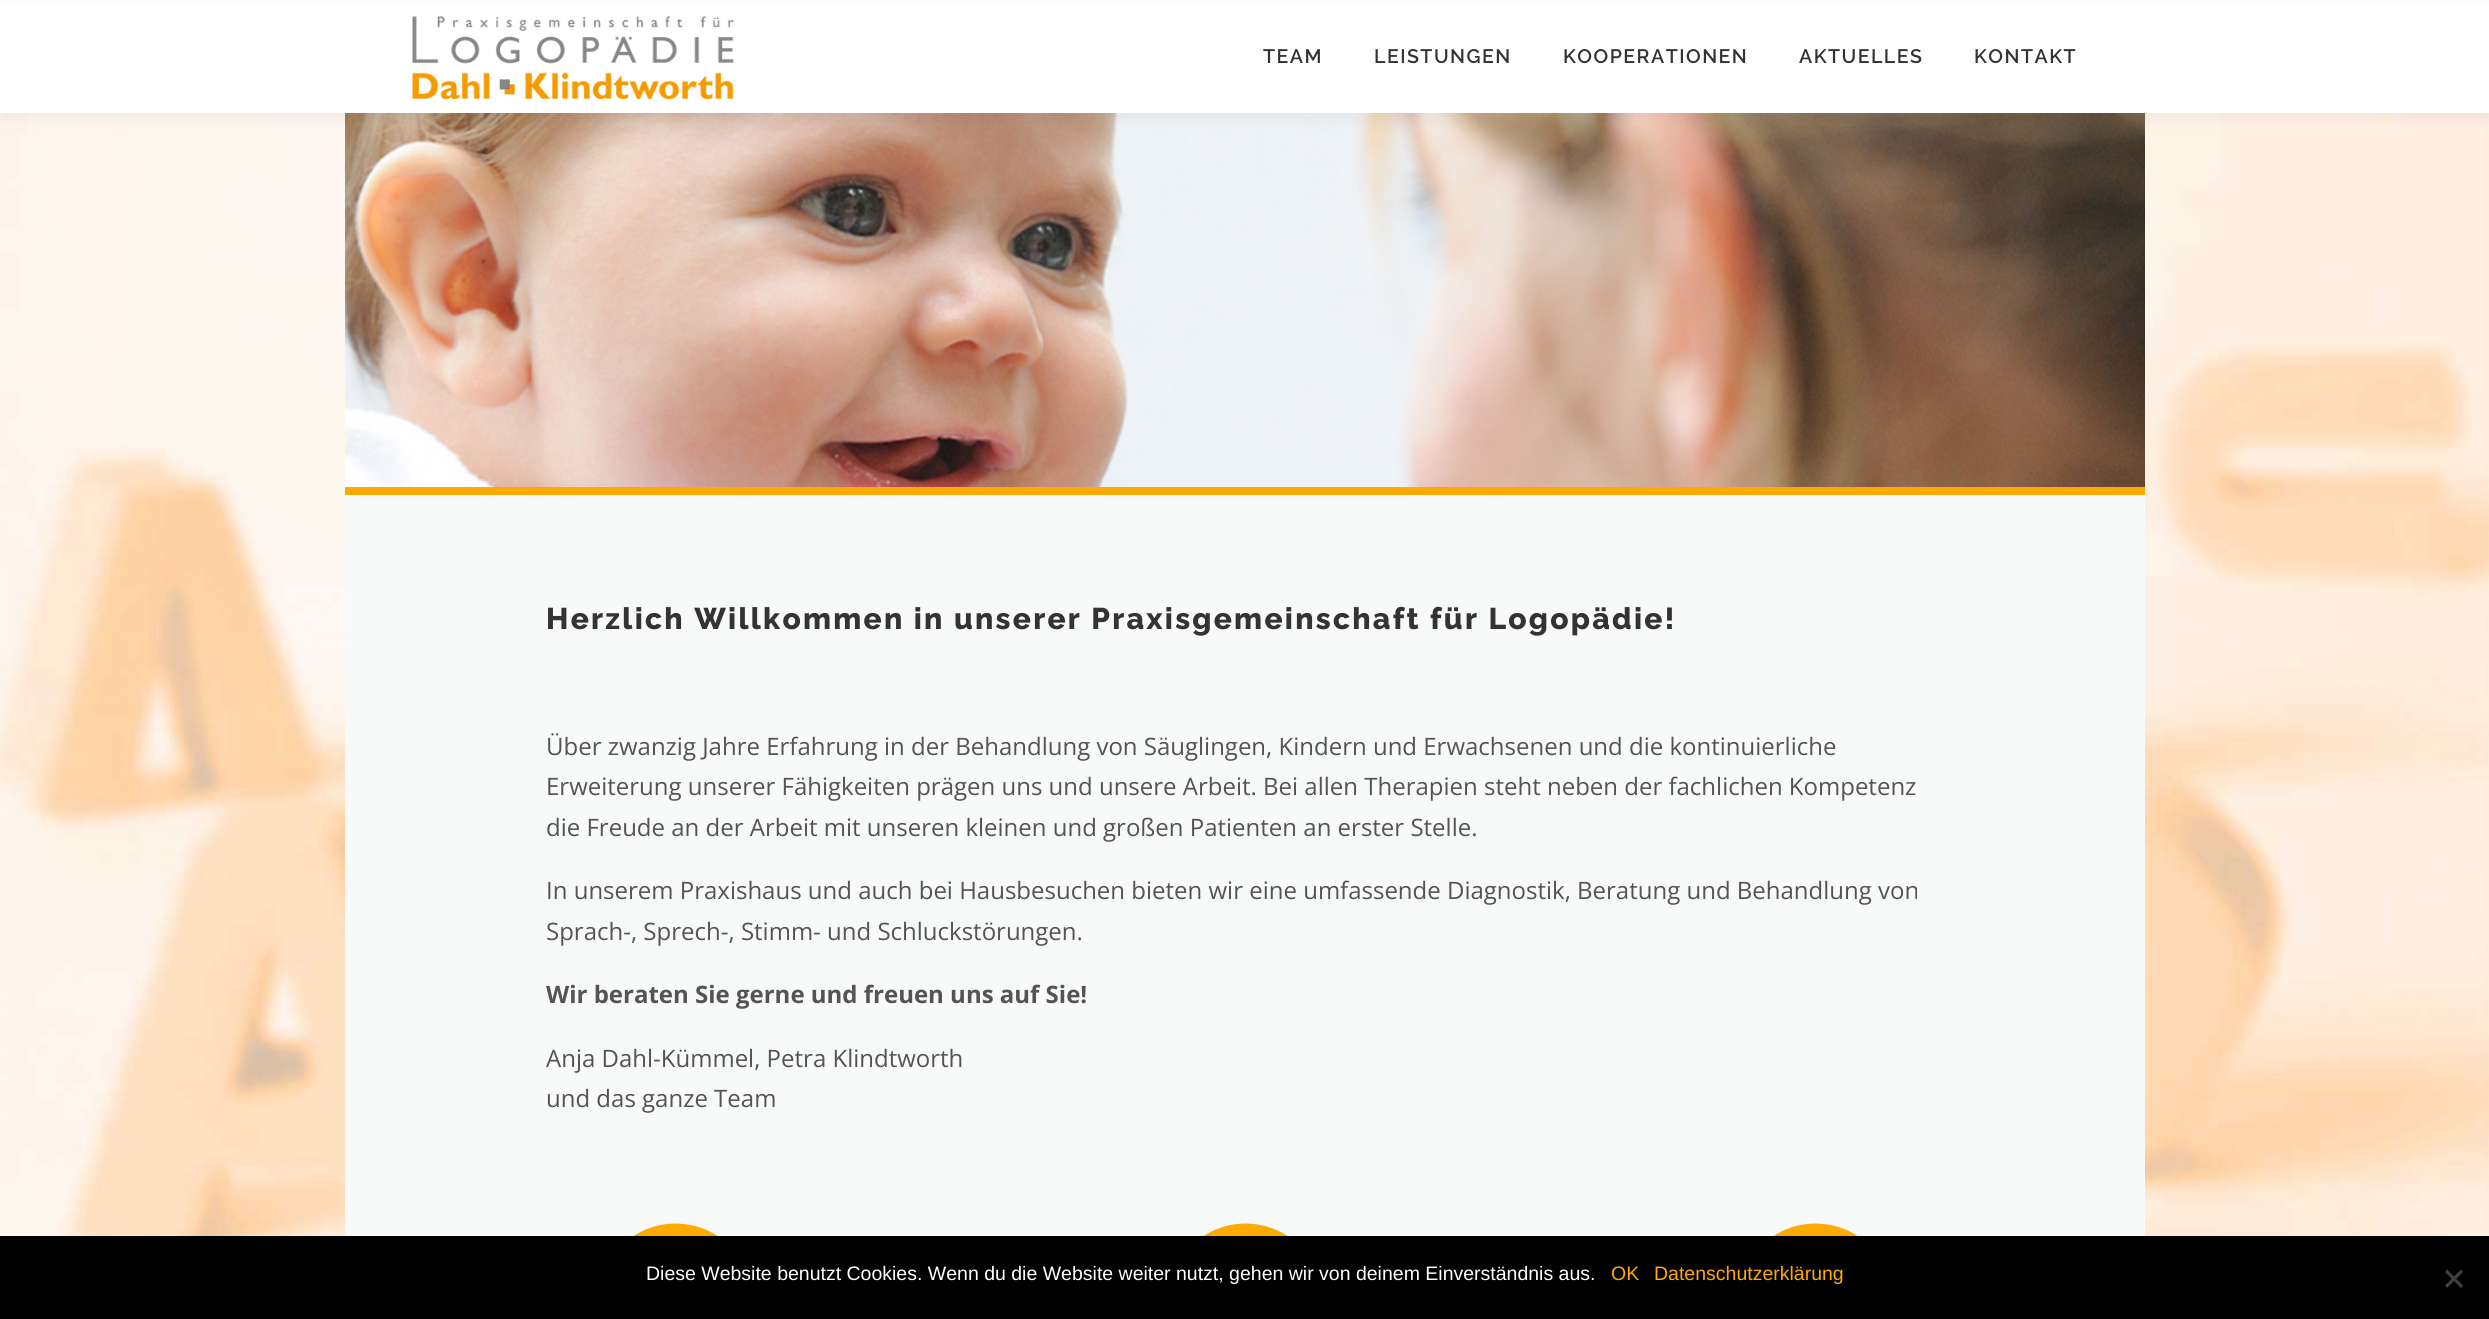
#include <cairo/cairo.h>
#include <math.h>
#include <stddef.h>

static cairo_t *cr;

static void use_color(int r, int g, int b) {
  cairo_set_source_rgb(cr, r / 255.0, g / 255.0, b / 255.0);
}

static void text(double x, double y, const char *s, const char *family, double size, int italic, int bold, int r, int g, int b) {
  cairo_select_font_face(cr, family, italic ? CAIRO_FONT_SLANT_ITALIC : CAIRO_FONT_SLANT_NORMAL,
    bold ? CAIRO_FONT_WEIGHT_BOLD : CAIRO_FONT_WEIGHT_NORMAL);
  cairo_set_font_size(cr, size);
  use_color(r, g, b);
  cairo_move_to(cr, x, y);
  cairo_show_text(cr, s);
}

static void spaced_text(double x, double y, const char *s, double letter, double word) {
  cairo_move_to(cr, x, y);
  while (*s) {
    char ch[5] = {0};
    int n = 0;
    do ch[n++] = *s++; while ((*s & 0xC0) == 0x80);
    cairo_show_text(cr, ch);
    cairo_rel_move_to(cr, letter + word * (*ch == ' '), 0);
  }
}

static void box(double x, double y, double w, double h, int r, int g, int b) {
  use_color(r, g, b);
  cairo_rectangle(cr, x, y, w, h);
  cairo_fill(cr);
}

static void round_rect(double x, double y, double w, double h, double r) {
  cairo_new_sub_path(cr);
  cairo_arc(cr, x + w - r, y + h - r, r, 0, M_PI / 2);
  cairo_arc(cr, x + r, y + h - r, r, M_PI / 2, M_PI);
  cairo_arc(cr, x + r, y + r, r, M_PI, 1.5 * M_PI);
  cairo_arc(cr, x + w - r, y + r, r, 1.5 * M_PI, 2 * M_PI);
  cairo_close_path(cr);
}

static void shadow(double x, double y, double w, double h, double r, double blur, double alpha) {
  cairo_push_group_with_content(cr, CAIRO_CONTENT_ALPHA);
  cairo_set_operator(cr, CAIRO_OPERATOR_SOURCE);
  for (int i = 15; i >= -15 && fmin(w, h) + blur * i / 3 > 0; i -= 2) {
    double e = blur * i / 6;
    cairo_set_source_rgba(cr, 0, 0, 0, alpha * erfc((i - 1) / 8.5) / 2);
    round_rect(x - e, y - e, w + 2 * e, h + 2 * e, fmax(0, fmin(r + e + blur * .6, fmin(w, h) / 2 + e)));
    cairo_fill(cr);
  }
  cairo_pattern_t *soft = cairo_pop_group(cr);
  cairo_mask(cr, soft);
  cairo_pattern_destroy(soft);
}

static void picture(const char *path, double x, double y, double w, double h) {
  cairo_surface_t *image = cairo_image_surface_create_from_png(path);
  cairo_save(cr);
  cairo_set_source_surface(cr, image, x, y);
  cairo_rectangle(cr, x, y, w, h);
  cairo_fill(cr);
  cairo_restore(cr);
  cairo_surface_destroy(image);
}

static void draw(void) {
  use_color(255, 255, 255);
  cairo_paint(cr);
  picture("img_01.png", 0, 113, 2489, 1123);
  picture("img_03.png", 345, 113, 1800, 374);
  use_color(50, 50, 50);
  shadow(0, 8, 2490, 112, 0, 7.5, 0.06);
  box(0, 2, 2489, 111, 255, 255, 255);
  picture("img_02.png", 412, 16, 322, 83);
  box(345, 487, 1800, 8, 255, 170, 0);
  box(345, 495, 1800, 741, 248, 249, 249);
  use_color(255, 170, 0);
  cairo_new_path(cr);
  cairo_move_to(cr, 742, 1262);
  cairo_curve_to(cr, 750, 1275, 754, 1291, 753, 1306);
  cairo_curve_to(cr, 752, 1319, 747, 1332, 740, 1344);
  cairo_curve_to(cr, 708, 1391, 637, 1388, 609, 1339);
  cairo_curve_to(cr, 601, 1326, 598, 1311, 599, 1296);
  cairo_curve_to(cr, 600, 1282, 604, 1269, 612, 1258);
  cairo_curve_to(cr, 643, 1210, 714, 1213, 742, 1262);
  cairo_close_path(cr);
  cairo_fill(cr);
  cairo_new_path(cr);
  cairo_move_to(cr, 1312, 1262);
  cairo_curve_to(cr, 1320, 1275, 1324, 1291, 1323, 1306);
  cairo_curve_to(cr, 1322, 1319, 1317, 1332, 1310, 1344);
  cairo_curve_to(cr, 1278, 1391, 1207, 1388, 1179, 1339);
  cairo_curve_to(cr, 1171, 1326, 1168, 1311, 1169, 1296);
  cairo_curve_to(cr, 1170, 1282, 1174, 1269, 1182, 1258);
  cairo_curve_to(cr, 1213, 1210, 1284, 1213, 1312, 1262);
  cairo_close_path(cr);
  cairo_fill(cr);
  cairo_new_path(cr);
  cairo_move_to(cr, 1882, 1262);
  cairo_curve_to(cr, 1890, 1275, 1894, 1291, 1893, 1306);
  cairo_curve_to(cr, 1892, 1319, 1887, 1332, 1880, 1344);
  cairo_curve_to(cr, 1848, 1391, 1777, 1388, 1749, 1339);
  cairo_curve_to(cr, 1741, 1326, 1738, 1311, 1739, 1296);
  cairo_curve_to(cr, 1740, 1282, 1744, 1269, 1752, 1258);
  cairo_curve_to(cr, 1783, 1210, 1854, 1213, 1882, 1262);
  cairo_close_path(cr);
  cairo_fill(cr);
  box(0, 1236, 2489, 83, 0, 0, 0);
  use_color(64, 64, 64);
  cairo_new_path(cr);
  cairo_move_to(cr, 2461, 1269.5);
  cairo_line_to(cr, 2463, 1272);
  cairo_line_to(cr, 2447, 1288);
  cairo_line_to(cr, 2445, 1285.5);
  cairo_close_path(cr);
  cairo_fill(cr);
  cairo_new_path(cr);
  cairo_move_to(cr, 2445, 1272);
  cairo_line_to(cr, 2447, 1269.5);
  cairo_line_to(cr, 2463, 1285.5);
  cairo_line_to(cr, 2461, 1288);
  cairo_close_path(cr);
  cairo_fill(cr);
  cairo_select_font_face(cr, "Raleway SemiBold", CAIRO_FONT_SLANT_NORMAL, CAIRO_FONT_WEIGHT_NORMAL);
  cairo_set_font_size(cr, 19.5);
  use_color(51, 51, 51);
  spaced_text(1263, 63, "TEAM", 1.5, 0);
  spaced_text(1374, 63, "LEISTUNGEN", 1.5, 0);
  spaced_text(1563, 63, "KOOPERATIONEN", 1.5, 0);
  spaced_text(1799, 63, "AKTUELLES", 1.5, 0);
  spaced_text(1974, 63, "KONTAKT", 1.5, 0);
  cairo_select_font_face(cr, "Raleway ExtraBold", CAIRO_FONT_SLANT_NORMAL, CAIRO_FONT_WEIGHT_NORMAL);
  cairo_set_font_size(cr, 30);
  spaced_text(546, 629, "Herzlich Willkommen in unserer Praxisgemeinschaft für Logopädie!", 2.25, 0);
  text(546, 755, "Über zwanzig Jahre Erfahrung in der Behandlung von Säuglingen, Kindern und Erwachsenen und die kontinuierliche", "Open Sans", 24, 0, 0, 84, 84, 84);
  text(546, 795, "Erweiterung unserer Fähigkeiten prägen uns und unsere Arbeit. Bei allen Therapien steht neben der fachlichen Kompetenz", "Open Sans", 24, 0, 0, 84, 84, 84);
  text(546, 836, "die Freude an der Arbeit mit unseren kleinen und großen Patienten an erster Stelle.", "Open Sans", 24, 0, 0, 84, 84, 84);
  text(546, 899, "In unserem Praxishaus und auch bei Hausbesuchen bieten wir eine umfassende Diagnostik, Beratung und Behandlung von", "Open Sans", 24, 0, 0, 84, 84, 84);
  text(546, 940, "Sprach-, Sprech-, Stimm- und Schluckstörungen.", "Open Sans", 24, 0, 0, 84, 84, 84);
  text(546, 1003, "Wir beraten Sie gerne und freuen uns auf Sie!", "Open Sans", 24, 0, 1, 84, 84, 84);
  text(546, 1067, "Anja Dahl-Kümmel, Petra Klindtworth", "Open Sans", 24, 0, 0, 84, 84, 84);
  text(546, 1107, "und das ganze Team", "Open Sans", 24, 0, 0, 84, 84, 84);
  text(646, 1280, "Diese Website benutzt Cookies. Wenn du die Website weiter nutzt, gehen wir von deinem Einverständnis aus.", "Liberation Sans", 19.5, 0, 0, 255, 255, 255);
  text(1611, 1280, "OK", "Liberation Sans", 19.5, 0, 0, 255, 170, 0);
  text(1654, 1280, "Datenschutzerklärung", "Liberation Sans", 19.5, 0, 0, 255, 170, 0);
}

int main(void) {
  cairo_surface_t *surface = cairo_image_surface_create(CAIRO_FORMAT_RGB24, 2489, 1319);
  cr = cairo_create(surface);
  cairo_font_options_t *options = cairo_font_options_create();
  cairo_font_options_set_hint_metrics(options, CAIRO_HINT_METRICS_OFF);
  cairo_font_options_set_hint_style(options, CAIRO_HINT_STYLE_NONE);
  cairo_set_font_options(cr, options);
  cairo_set_miter_limit(cr, 4);
  draw();
  cairo_surface_write_to_png(surface, "out.png");
  cairo_font_options_destroy(options);
  cairo_destroy(cr);
  cairo_surface_destroy(surface);
  return 0;
}
